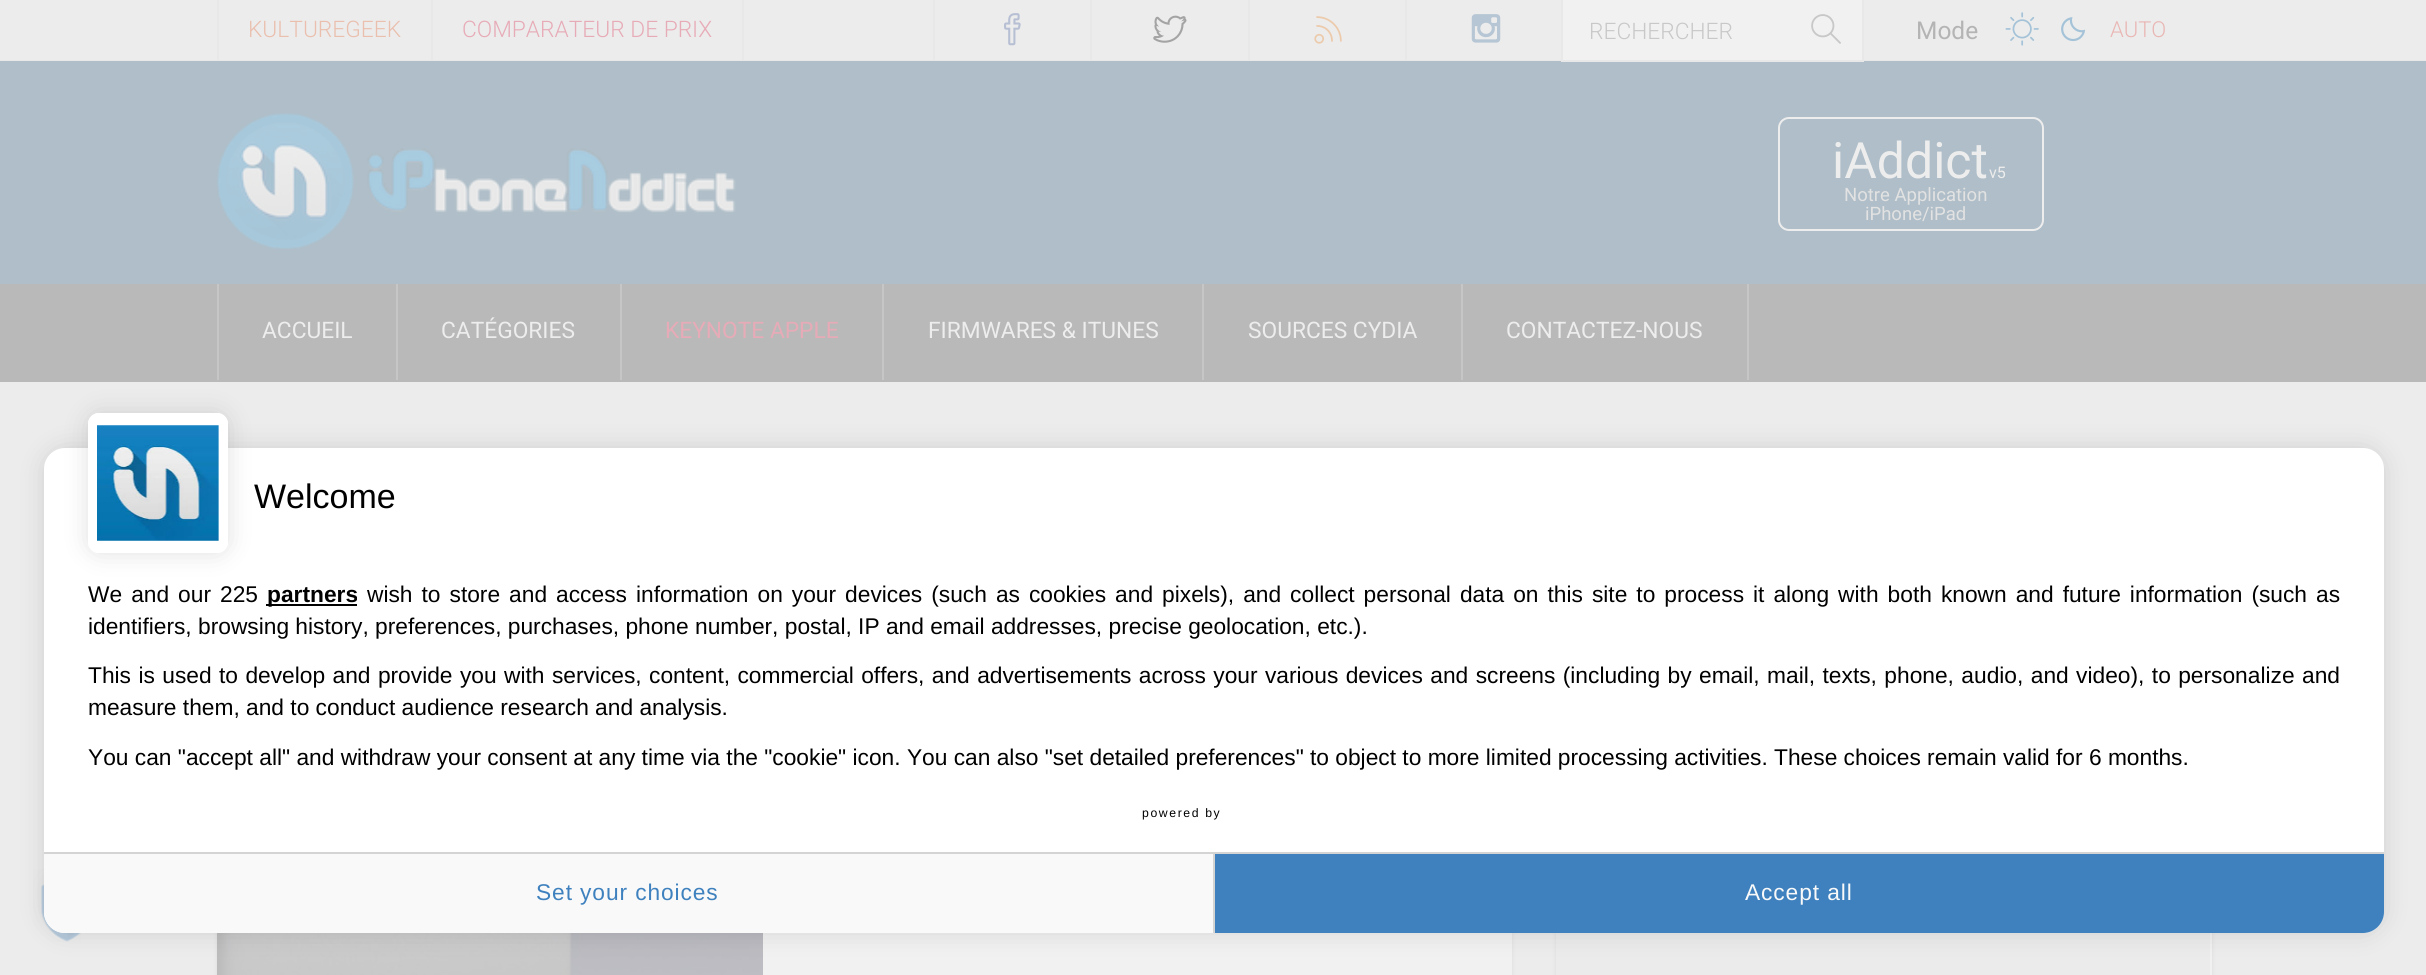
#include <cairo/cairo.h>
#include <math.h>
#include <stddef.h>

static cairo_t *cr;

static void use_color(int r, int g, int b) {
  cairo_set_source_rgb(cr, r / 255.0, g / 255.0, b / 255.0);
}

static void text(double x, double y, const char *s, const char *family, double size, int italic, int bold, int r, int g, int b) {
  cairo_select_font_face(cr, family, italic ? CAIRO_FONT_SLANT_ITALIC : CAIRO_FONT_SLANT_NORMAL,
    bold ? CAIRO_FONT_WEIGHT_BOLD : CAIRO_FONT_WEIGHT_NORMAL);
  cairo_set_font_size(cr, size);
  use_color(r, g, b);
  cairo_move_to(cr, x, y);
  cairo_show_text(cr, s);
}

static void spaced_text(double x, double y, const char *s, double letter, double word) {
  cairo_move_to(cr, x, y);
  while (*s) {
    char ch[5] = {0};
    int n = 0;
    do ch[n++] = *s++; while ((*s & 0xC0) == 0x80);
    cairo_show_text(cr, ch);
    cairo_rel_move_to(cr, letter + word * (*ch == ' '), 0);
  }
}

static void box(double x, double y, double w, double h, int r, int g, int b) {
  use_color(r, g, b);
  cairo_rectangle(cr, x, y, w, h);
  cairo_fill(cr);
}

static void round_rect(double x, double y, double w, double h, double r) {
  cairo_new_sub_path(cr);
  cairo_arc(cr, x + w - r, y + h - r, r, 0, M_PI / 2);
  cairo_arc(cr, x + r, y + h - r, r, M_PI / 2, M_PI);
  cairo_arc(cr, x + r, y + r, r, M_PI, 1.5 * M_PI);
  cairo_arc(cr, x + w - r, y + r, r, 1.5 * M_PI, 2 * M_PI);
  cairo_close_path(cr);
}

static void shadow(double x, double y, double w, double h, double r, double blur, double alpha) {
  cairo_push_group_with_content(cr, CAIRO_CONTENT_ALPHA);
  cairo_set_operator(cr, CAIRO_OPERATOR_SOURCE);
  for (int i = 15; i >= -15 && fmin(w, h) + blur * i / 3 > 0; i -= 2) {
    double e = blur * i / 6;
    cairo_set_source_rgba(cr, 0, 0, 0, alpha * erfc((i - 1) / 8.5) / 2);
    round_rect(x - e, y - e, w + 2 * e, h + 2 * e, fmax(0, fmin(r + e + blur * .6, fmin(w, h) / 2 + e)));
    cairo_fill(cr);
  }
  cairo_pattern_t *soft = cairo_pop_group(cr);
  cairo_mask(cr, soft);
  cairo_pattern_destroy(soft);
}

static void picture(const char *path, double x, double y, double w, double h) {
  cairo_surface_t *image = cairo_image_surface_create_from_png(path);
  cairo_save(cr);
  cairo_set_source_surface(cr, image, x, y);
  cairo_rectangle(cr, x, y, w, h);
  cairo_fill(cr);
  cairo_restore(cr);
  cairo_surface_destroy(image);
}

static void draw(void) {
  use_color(236, 236, 236);
  cairo_paint(cr);
  box(0, 60, 2426, 1, 232, 232, 232);
  box(431, 0, 2, 61, 232, 232, 232);
  box(217, 0, 2, 61, 232, 232, 232);
  box(742, 0, 2, 61, 232, 232, 232);
  box(933, 0, 2, 60, 232, 232, 232);
  picture("img_01.png", 1004, 13, 17, 33);
  box(1090, 0, 2, 60, 232, 232, 232);
  picture("img_02.png", 1153, 15, 34, 28);
  box(1248, 0, 2, 60, 232, 232, 232);
  picture("img_03.png", 1314, 16, 28, 28);
  box(1405, 0, 2, 60, 232, 232, 232);
  picture("img_04.png", 1471, 14, 30, 29);
  box(1563, 0, 299, 60, 241, 241, 241);
  box(1862, 0, 2, 61, 232, 232, 232);
  box(0, 61, 2426, 223, 175, 190, 200);
  box(1561, 61, 303, 1, 232, 232, 232);
  box(1561, 0, 2, 61, 232, 232, 232);
  picture("img_05.png", 1811, 14, 30, 30);
  picture("img_06.png", 2005, 12, 34, 34);
  picture("img_07.png", 2061, 17, 25, 25);
  picture("img_08.png", 216, 113, 520, 136);
  round_rect(1779, 118, 264, 112, 10);
  use_color(237, 237, 237);
  cairo_stroke(cr);
  box(0, 284, 2426, 98, 185, 185, 185);
  box(396, 284, 2, 96, 198, 198, 198);
  box(217, 284, 2, 96, 198, 198, 198);
  box(620, 284, 2, 96, 198, 198, 198);
  box(882, 284, 2, 96, 198, 198, 198);
  box(1202, 284, 2, 96, 198, 198, 198);
  box(1461, 284, 2, 96, 198, 198, 198);
  box(1747, 284, 2, 96, 198, 198, 198);
  use_color(165, 165, 165);
  shadow(217, 621, 1295, 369, 9, 2, 0.25);
  box(763, 933, 749, 42, 241, 241, 241);
  picture("img_09.png", 217, 933, 546, 42);
  use_color(165, 165, 165);
  shadow(1556, 894, 656, 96, 9, 2, 0.25);
  box(2210, 933, 2, 42, 241, 241, 241);
  box(1556, 933, 654, 42, 235, 235, 235);
  picture("img_10.png", 33, 869, 48, 73);
  use_color(0, 0, 0);
  shadow(44, 448, 2340, 485, 21, 13, 0.12);
  use_color(255, 255, 255);
  round_rect(44, 448, 2340, 485, 21);
  cairo_fill(cr);
  use_color(0, 0, 0);
  shadow(88, 413, 140, 140, 11, 13, 0.12);
  use_color(255, 255, 255);
  round_rect(88, 413, 140, 140, 11);
  cairo_fill(cr);
  picture("img_11.png", 97, 425, 122, 116);
  round_rect(92.5, 417.5, 131, 131, 6.5);
  cairo_set_line_width(cr, 9);
  cairo_stroke(cr);
  box(266, 604, 91, 2, 0, 0, 0);
  use_color(249, 249, 249);
  cairo_new_path(cr);
  cairo_move_to(cr, 44, 852);
  cairo_line_to(cr, 1215, 852);
  cairo_line_to(cr, 1215, 933);
  cairo_line_to(cr, 65, 933);
  cairo_curve_to(cr, 53.5, 933, 44, 923.5, 44, 912);
  cairo_close_path(cr);
  cairo_fill(cr);
  box(44, 852, 1171, 2, 212, 212, 212);
  box(1213, 852, 2, 81, 212, 212, 212);
  use_color(62, 129, 190);
  cairo_new_path(cr);
  cairo_move_to(cr, 1215, 852);
  cairo_line_to(cr, 2384, 852);
  cairo_line_to(cr, 2384, 912);
  cairo_curve_to(cr, 2384, 923.5, 2374.5, 933, 2363, 933);
  cairo_line_to(cr, 1215, 933);
  cairo_close_path(cr);
  cairo_fill(cr);
  box(1215, 852, 1169, 2, 212, 212, 212);
  text(248, 37, "KULTUREGEEK", "Roboto Light", 22.75, 0, 0, 234, 191, 174);
  text(462, 37, "COMPARATEUR DE PRIX", "Roboto Light", 22.75, 0, 0, 231, 171, 183);
  text(1589, 39, "RECHERCHER", "Roboto Light", 22.75, 0, 0, 200, 200, 200);
  text(1916, 39, "Mode", "Roboto", 24.5, 0, 0, 180, 180, 180);
  text(2110, 37, "AUTO", "Roboto Light", 22, 0, 0, 233, 182, 180);
  text(1832, 178, "iAddict", "Roboto", 50, 0, 0, 237, 237, 237);
  text(1989, 178, "v5", "Roboto", 16, 0, 0, 237, 237, 237);
  text(1844, 201, "Notre Application", "Roboto", 18.5, 0, 0, 226, 226, 226);
  text(1865, 220, "iPhone/iPad", "Roboto", 18.5, 0, 0, 226, 226, 226);
  text(262, 338, "ACCUEIL", "Roboto", 22.75, 0, 0, 237, 237, 237);
  text(441, 338, "CATÉGORIES", "Roboto", 22.75, 0, 0, 237, 237, 237);
  text(665, 338, "KEYNOTE APPLE", "Roboto", 22.75, 0, 0, 231, 171, 183);
  text(928, 338, "FIRMWARES & ITUNES", "Roboto", 22.75, 0, 0, 237, 237, 237);
  text(1248, 338, "SOURCES CYDIA", "Roboto", 22.75, 0, 0, 237, 237, 237);
  text(1506, 338, "CONTACTEZ-NOUS", "Roboto", 22.75, 0, 0, 237, 237, 237);
  text(254, 508, "Welcome", "Liberation Sans", 34, 0, 0, 0, 0, 0);
  cairo_set_font_size(cr, 22.75);
  spaced_text(88, 602, "We and our 225", 0, 2.7);
  text(267, 602, "partners", "Liberation Sans", 22.75, 0, 1, 0, 0, 0);
  cairo_select_font_face(cr, "Liberation Sans", CAIRO_FONT_SLANT_NORMAL, CAIRO_FONT_WEIGHT_NORMAL);
  spaced_text(367, 602, "wish to store and access information on your devices (such as cookies and pixels), and collect personal data on this site to process it along with both known and future information (such as", 0, 2.7);
  text(88, 634, "identifiers, browsing history, preferences, purchases, phone number, postal, IP and email addresses, precise geolocation, etc.).", "Liberation Sans", 22.75, 0, 0, 0, 0, 0);
  spaced_text(88, 683, "This is used to develop and provide you with services, content, commercial offers, and advertisements across your various devices and screens (including by email, mail, texts, phone, audio, and video), to personalize and", 0, 1.1);
  text(88, 715, "measure them, and to conduct audience research and analysis.", "Liberation Sans", 22.75, 0, 0, 0, 0, 0);
  text(88, 765, "You can \"accept all\" and withdraw your consent at any time via the \"cookie\" icon. You can also \"set detailed preferences\" to object to more limited processing activities. These choices remain valid for 6 months.", "Liberation Sans", 22.75, 0, 0, 0, 0, 0);
  cairo_set_font_size(cr, 12.25);
  spaced_text(1142, 817, "powered by", 1.6, 0);
  cairo_set_font_size(cr, 22.75);
  use_color(62, 129, 190);
  spaced_text(536, 900, "Set your choices", 0.9, 0);
  use_color(249, 249, 249);
  spaced_text(1745, 900, "Accept all", 0.9, 0);
}

int main(void) {
  cairo_surface_t *surface = cairo_image_surface_create(CAIRO_FORMAT_RGB24, 2426, 975);
  cr = cairo_create(surface);
  cairo_font_options_t *options = cairo_font_options_create();
  cairo_font_options_set_hint_metrics(options, CAIRO_HINT_METRICS_OFF);
  cairo_font_options_set_hint_style(options, CAIRO_HINT_STYLE_NONE);
  cairo_set_font_options(cr, options);
  cairo_set_miter_limit(cr, 4);
  draw();
  cairo_surface_write_to_png(surface, "out.png");
  cairo_font_options_destroy(options);
  cairo_destroy(cr);
  cairo_surface_destroy(surface);
  return 0;
}
